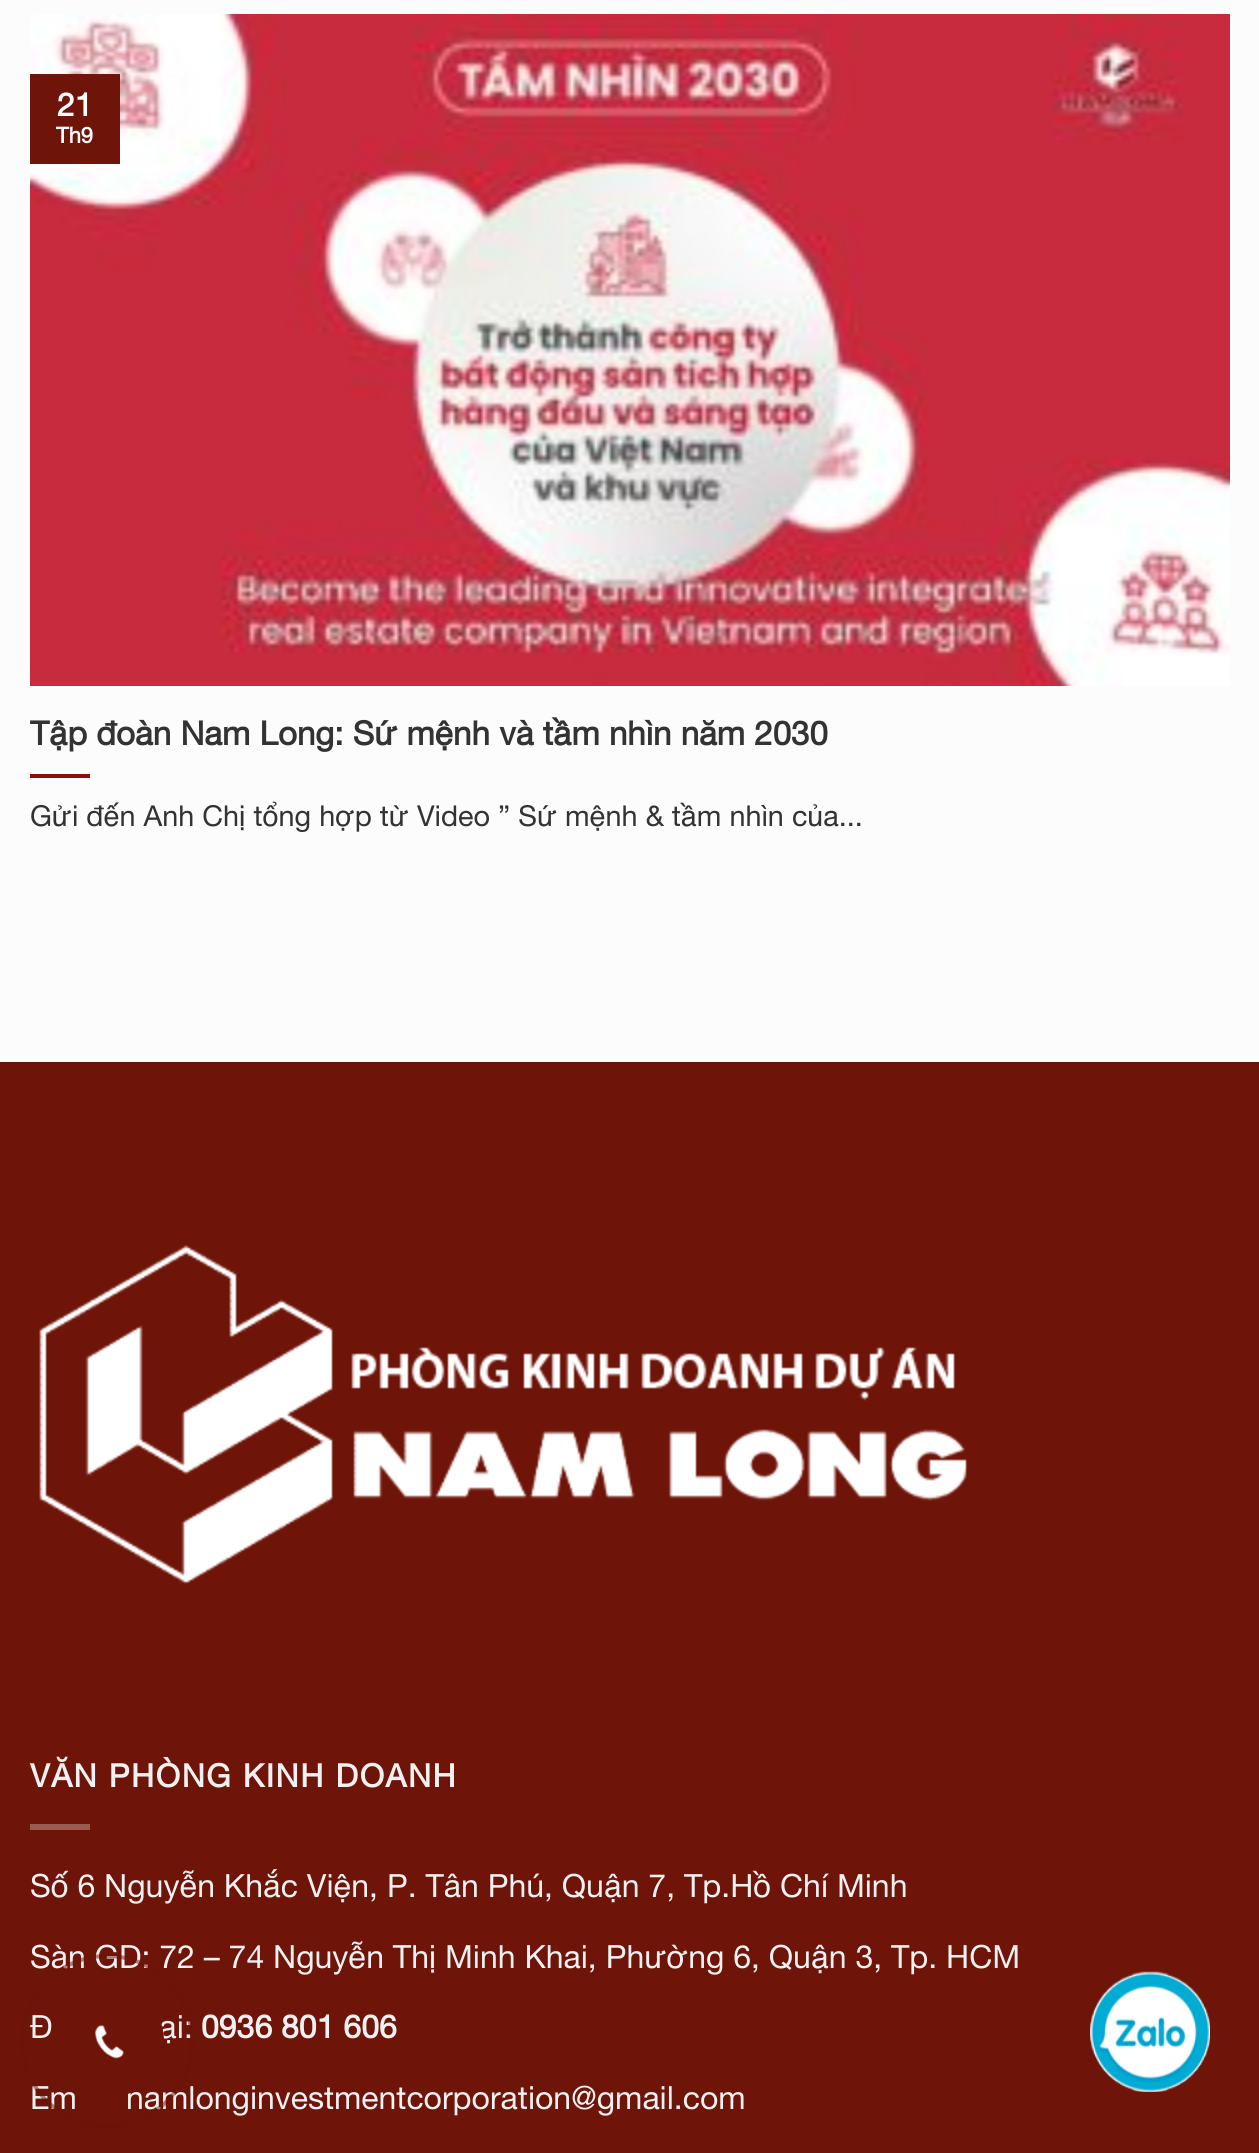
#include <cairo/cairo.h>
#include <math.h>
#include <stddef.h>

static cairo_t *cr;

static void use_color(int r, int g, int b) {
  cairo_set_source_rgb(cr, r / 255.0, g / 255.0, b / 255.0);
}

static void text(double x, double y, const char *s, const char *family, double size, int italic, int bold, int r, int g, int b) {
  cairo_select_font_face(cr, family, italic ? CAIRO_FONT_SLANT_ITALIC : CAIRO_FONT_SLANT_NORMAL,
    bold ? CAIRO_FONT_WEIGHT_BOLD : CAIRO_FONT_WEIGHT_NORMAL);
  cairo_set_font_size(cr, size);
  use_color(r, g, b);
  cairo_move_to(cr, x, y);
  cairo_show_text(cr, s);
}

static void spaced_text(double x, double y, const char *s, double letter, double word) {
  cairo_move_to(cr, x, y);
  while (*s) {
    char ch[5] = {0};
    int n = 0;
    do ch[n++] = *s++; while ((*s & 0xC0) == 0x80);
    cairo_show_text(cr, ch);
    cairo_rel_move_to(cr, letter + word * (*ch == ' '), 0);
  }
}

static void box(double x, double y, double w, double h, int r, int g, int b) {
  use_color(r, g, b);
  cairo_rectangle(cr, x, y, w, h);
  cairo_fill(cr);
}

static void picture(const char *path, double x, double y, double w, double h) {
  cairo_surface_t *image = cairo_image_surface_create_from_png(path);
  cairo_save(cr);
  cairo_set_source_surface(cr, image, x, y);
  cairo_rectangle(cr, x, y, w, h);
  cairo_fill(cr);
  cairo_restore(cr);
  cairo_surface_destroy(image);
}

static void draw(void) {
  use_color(252, 252, 252);
  cairo_paint(cr);
  picture("img_01.png", 30, 14, 1200, 672);
  box(30, 74, 90, 90, 110, 20, 9);
  box(30, 774, 60, 4, 145, 13, 16);
  box(0, 1064, 1259, 1089, 110, 20, 9);
  box(0, 1062, 1259, 2, 105, 19, 9);
  picture("img_02.png", 39, 1245, 928, 339);
  box(30, 1824, 60, 6, 154, 91, 83);
  picture("img_04.png", 1090, 1971, 120, 121);
  text(57, 116, "21", "Helvetica Neue", 32, 0, 1, 255, 255, 255);
  text(56, 143, "Th9", "Helvetica Neue", 22, 0, 1, 255, 255, 255);
  text(30, 745, "Tập đoàn Nam Long: Sứ mệnh và tầm nhìn năm 2030", "Helvetica Neue", 33.1, 0, 1, 51, 51, 51);
  text(30, 826, "Gửi đến Anh Chị tổng hợp từ Video ” Sứ mệnh & tầm nhìn của...", "Helvetica Neue", 28.8, 0, 0, 51, 51, 51);
  cairo_select_font_face(cr, "Helvetica Neue", CAIRO_FONT_SLANT_NORMAL, CAIRO_FONT_WEIGHT_BOLD);
  cairo_set_font_size(cr, 32);
  use_color(241, 241, 241);
  spaced_text(30, 1787, "VĂN PHÒNG KINH DOANH", 1.6, 0);
  text(30, 1897, "Số 6 Nguyễn Khắc Viện, P. Tân Phú, Quận 7, Tp.Hồ Chí Minh", "Helvetica Neue", 32, 0, 0, 241, 241, 241);
  text(30, 1968, "Sàn GD: 72 – 74 Nguyễn Thị Minh Khai, Phường 6, Quận 3, Tp. HCM", "Helvetica Neue", 32, 0, 0, 241, 241, 241);
  text(30, 2038, "Đ", "Helvetica Neue", 32, 0, 0, 241, 241, 241);
  text(159, 2038, "ại:", "Helvetica Neue", 32, 0, 0, 241, 241, 241);
  text(201, 2038, "0936 801 606", "Helvetica Neue", 32, 0, 1, 241, 241, 241);
  text(30, 2109, "Em", "Helvetica Neue", 32, 0, 0, 241, 241, 241);
  text(126, 2109, "namlonginvestmentcorporation@gmail.com", "Helvetica Neue", 32, 0, 0, 241, 241, 241);
  cairo_new_path(cr);
  cairo_arc(cr, 107, 2041, 85, 0, 2 * M_PI);
  cairo_set_source_rgba(cr, 0.431, 0.078, 0.035, 0.5);
  cairo_set_line_width(cr, 4);
  cairo_stroke(cr);
  use_color(110, 20, 9);
  cairo_arc(cr, 107, 2041, 57, 0, 2 * M_PI);
  cairo_fill(cr);
  picture("img_03.png", 94, 2025, 30, 34);
}

int main(void) {
  cairo_surface_t *surface = cairo_image_surface_create(CAIRO_FORMAT_RGB24, 1259, 2153);
  cr = cairo_create(surface);
  cairo_font_options_t *options = cairo_font_options_create();
  cairo_font_options_set_hint_metrics(options, CAIRO_HINT_METRICS_OFF);
  cairo_font_options_set_hint_style(options, CAIRO_HINT_STYLE_NONE);
  cairo_set_font_options(cr, options);
  cairo_set_miter_limit(cr, 4);
  draw();
  cairo_surface_write_to_png(surface, "out.png");
  cairo_font_options_destroy(options);
  cairo_destroy(cr);
  cairo_surface_destroy(surface);
  return 0;
}
